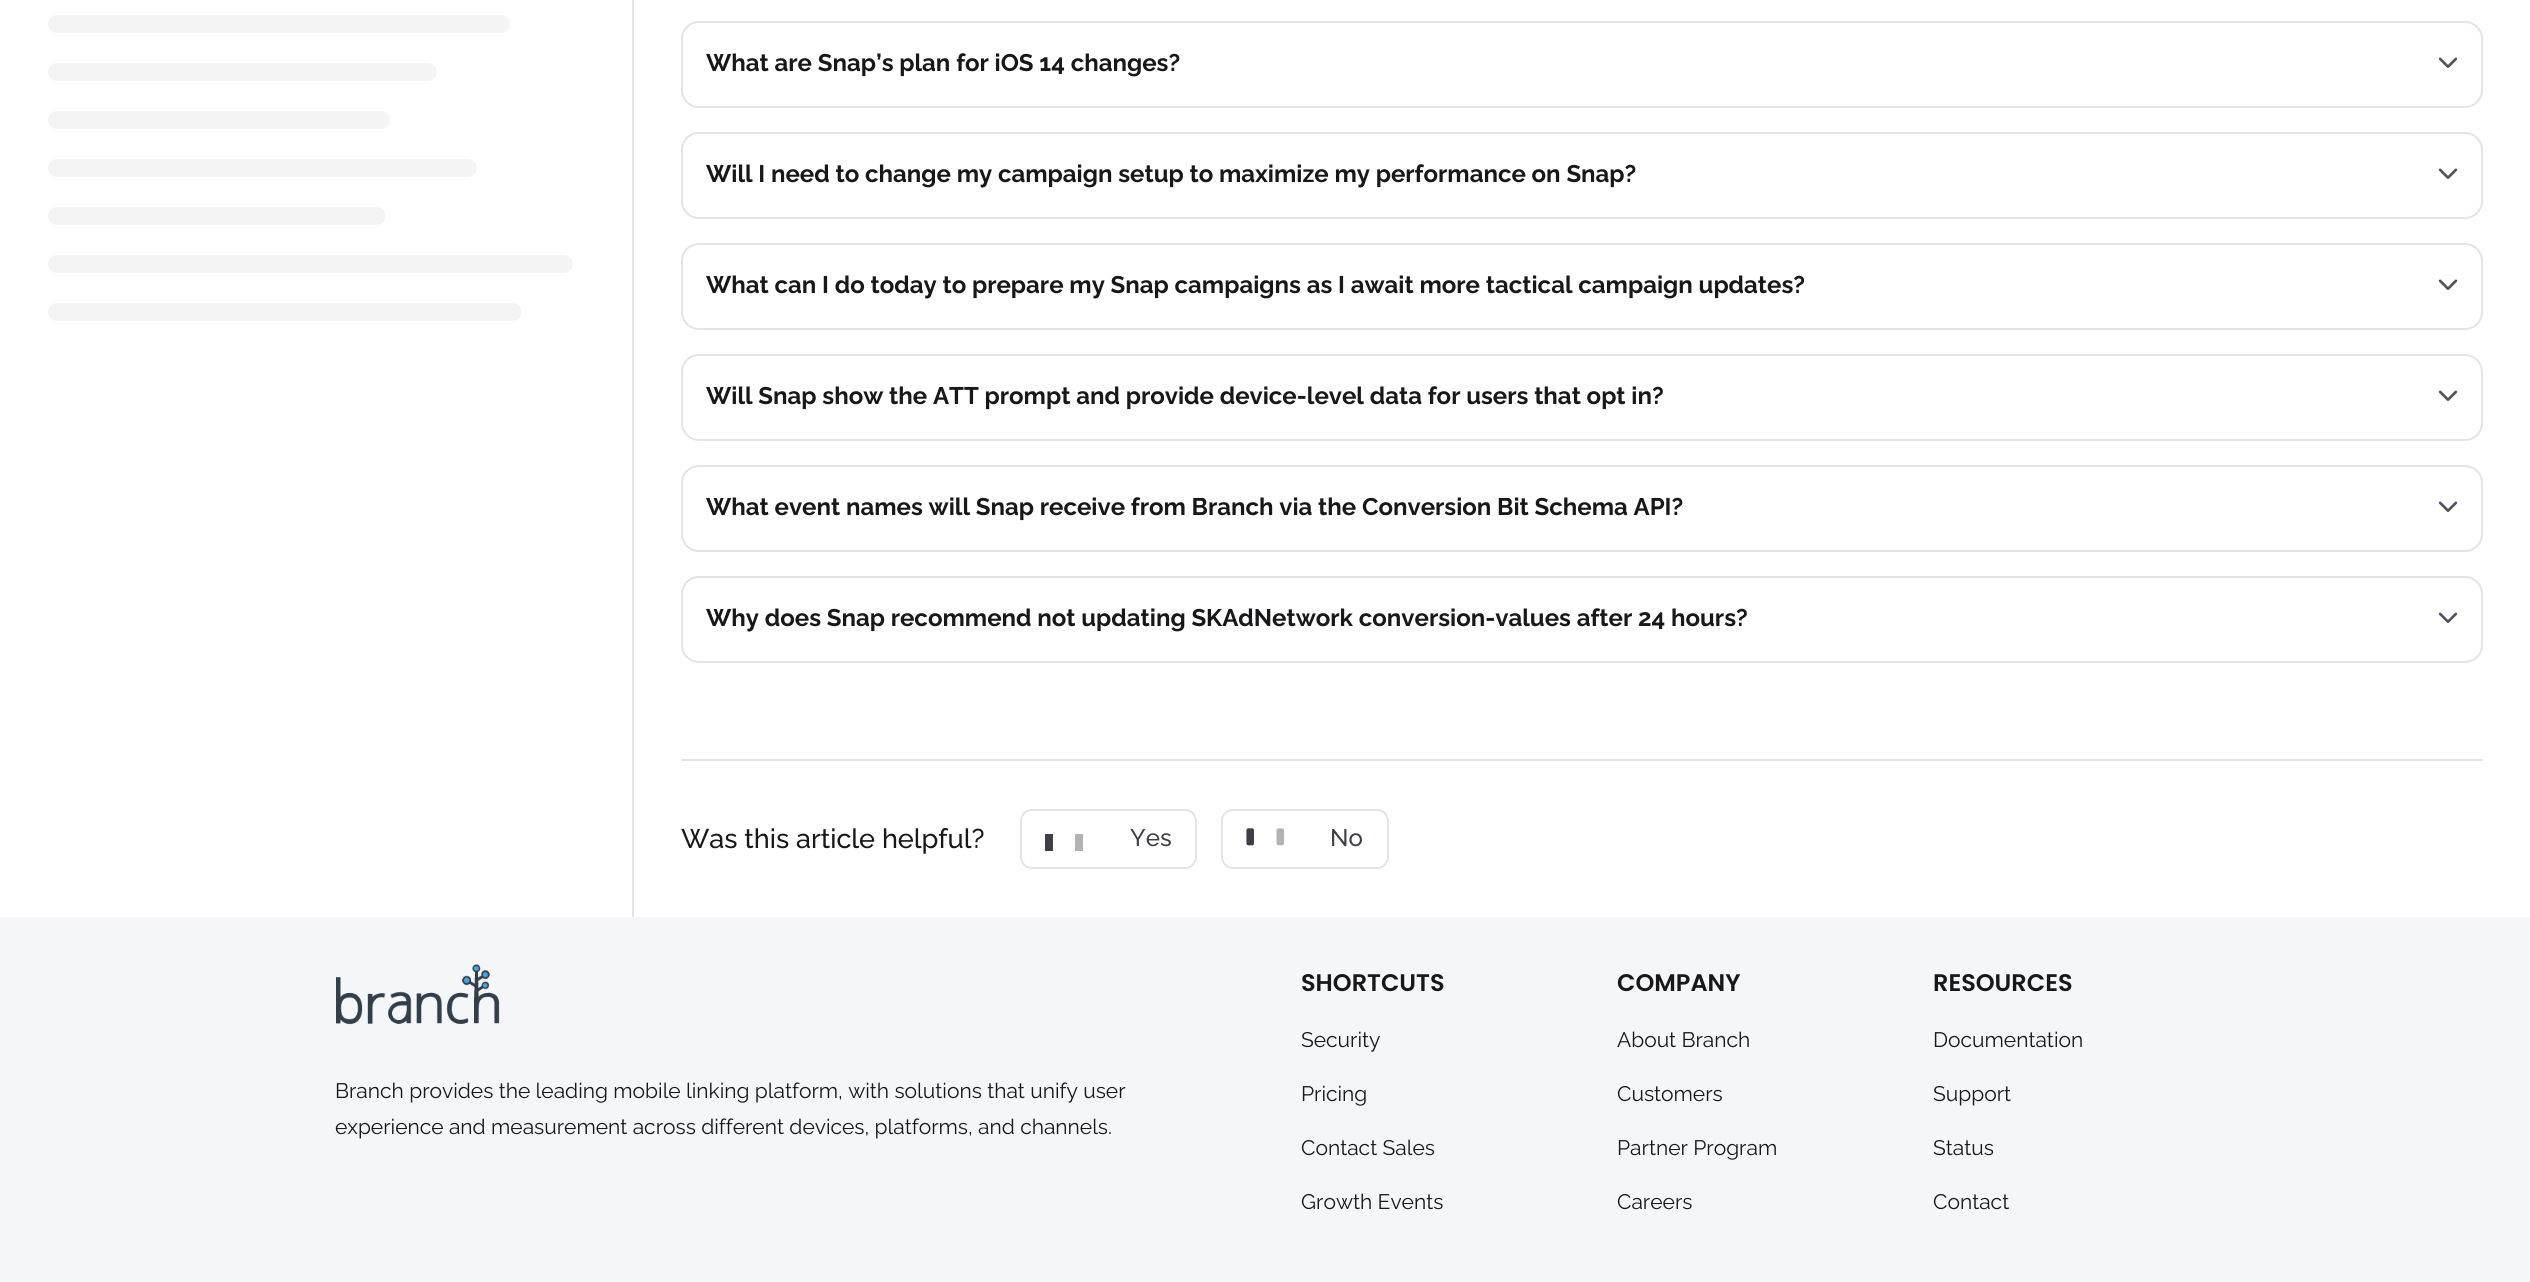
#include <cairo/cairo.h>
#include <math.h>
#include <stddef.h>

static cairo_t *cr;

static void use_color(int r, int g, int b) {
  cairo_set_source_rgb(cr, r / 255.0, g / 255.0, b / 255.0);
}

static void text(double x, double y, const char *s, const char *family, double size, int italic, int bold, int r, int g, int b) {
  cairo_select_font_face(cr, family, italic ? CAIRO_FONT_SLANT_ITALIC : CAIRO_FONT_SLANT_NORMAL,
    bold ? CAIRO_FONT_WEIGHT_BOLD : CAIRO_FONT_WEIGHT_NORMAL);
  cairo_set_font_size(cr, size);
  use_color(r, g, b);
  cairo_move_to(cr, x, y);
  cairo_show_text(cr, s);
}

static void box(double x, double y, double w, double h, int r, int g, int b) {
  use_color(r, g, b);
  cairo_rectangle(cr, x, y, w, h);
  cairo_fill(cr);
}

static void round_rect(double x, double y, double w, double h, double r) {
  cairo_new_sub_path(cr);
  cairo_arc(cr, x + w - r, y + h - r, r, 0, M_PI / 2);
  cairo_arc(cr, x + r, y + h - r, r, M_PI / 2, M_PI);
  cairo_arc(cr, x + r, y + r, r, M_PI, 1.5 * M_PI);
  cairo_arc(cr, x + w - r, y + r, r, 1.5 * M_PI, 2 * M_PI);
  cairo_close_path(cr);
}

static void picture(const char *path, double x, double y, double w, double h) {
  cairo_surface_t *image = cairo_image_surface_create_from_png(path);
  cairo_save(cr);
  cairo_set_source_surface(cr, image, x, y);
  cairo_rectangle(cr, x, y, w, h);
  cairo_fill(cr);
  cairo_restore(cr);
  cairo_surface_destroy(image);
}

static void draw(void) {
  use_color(255, 255, 255);
  cairo_paint(cr);
  box(632, 0, 2, 917, 228, 228, 231);
  use_color(244, 244, 244);
  round_rect(48, 15, 462, 18, 9);
  cairo_fill(cr);
  round_rect(48, 63, 389, 18, 9);
  cairo_fill(cr);
  round_rect(48, 111, 342, 18, 9);
  cairo_fill(cr);
  round_rect(48, 159, 429, 18, 9);
  cairo_fill(cr);
  round_rect(48, 207, 338, 18, 9);
  cairo_fill(cr);
  round_rect(48, 255, 525, 18, 9);
  cairo_fill(cr);
  round_rect(48, 303, 474, 18, 9);
  cairo_fill(cr);
  round_rect(682, 22, 1800, 85, 17);
  use_color(228, 228, 231);
  cairo_stroke(cr);
  picture("img_01.png", 2438, 57, 20, 11);
  round_rect(682, 133, 1800, 85, 17);
  cairo_stroke(cr);
  picture("img_01.png", 2438, 168, 20, 11);
  round_rect(682, 244, 1800, 85, 17);
  cairo_stroke(cr);
  picture("img_01.png", 2438, 279, 20, 11);
  round_rect(682, 355, 1800, 85, 17);
  cairo_stroke(cr);
  picture("img_01.png", 2438, 390, 20, 11);
  round_rect(682, 466, 1800, 85, 17);
  cairo_stroke(cr);
  picture("img_01.png", 2438, 501, 20, 11);
  round_rect(682, 577, 1800, 85, 17);
  cairo_stroke(cr);
  picture("img_01.png", 2438, 612, 20, 11);
  box(681, 759, 1802, 2, 228, 228, 231);
  round_rect(1021, 810, 175, 58, 11);
  cairo_stroke(cr);
  box(1045, 834, 8, 17, 63, 63, 70);
  box(1075, 834, 8, 17, 178, 178, 181);
  round_rect(1222, 810, 166, 58, 11);
  use_color(228, 228, 231);
  cairo_stroke(cr);
  picture("img_02.png", 1246, 828, 8, 18);
  picture("img_03.png", 1246, 828, 38, 18);
  box(0, 917, 2530, 365, 244, 246, 250);
  picture("img_04.png", 336, 964, 164, 61);
  text(706, 71, "What are Snap’s plan for iOS 14 changes?", "Raleway", 24, 0, 1, 24, 24, 27);
  text(706, 182, "Will I need to change my campaign setup to maximize my performance on Snap?", "Raleway", 24, 0, 1, 24, 24, 27);
  text(706, 293, "What can I do today to prepare my Snap campaigns as I await more tactical campaign updates?", "Raleway", 24, 0, 1, 24, 24, 27);
  text(706, 404, "Will Snap show the ATT prompt and provide device-level data for users that opt in?", "Raleway", 24, 0, 1, 24, 24, 27);
  text(706, 515, "What event names will Snap receive from Branch via the Conversion Bit Schema API?", "Raleway", 24, 0, 1, 24, 24, 27);
  text(706, 626, "Why does Snap recommend not updating SKAdNetwork conversion-values after 24 hours?", "Raleway", 24, 0, 1, 24, 24, 27);
  text(681, 848, "Was this article helpful?", "Raleway Medium", 27, 0, 0, 24, 24, 27);
  text(1130, 846, "Yes", "Raleway Medium", 24, 0, 0, 63, 63, 70);
  text(1330, 846, "No", "Raleway Medium", 24, 0, 0, 63, 63, 70);
  text(335, 1098, "Branch provides the leading mobile linking platform, with solutions that unify user", "Raleway", 21, 0, 0, 24, 24, 27);
  text(335, 1134, "experience and measurement across different devices, platforms, and channels.", "Raleway", 21, 0, 0, 24, 24, 27);
  text(1301, 991, "SHORTCUTS", "Poppins SemiBold", 24, 0, 0, 24, 24, 27);
  text(1301, 1047, "Security", "Raleway", 21, 0, 0, 24, 24, 27);
  text(1301, 1101, "Pricing", "Raleway", 21, 0, 0, 24, 24, 27);
  text(1301, 1155, "Contact Sales", "Raleway", 21, 0, 0, 24, 24, 27);
  text(1301, 1209, "Growth Events", "Raleway", 21, 0, 0, 24, 24, 27);
  text(1617, 991, "COMPANY", "Poppins SemiBold", 24, 0, 0, 24, 24, 27);
  text(1617, 1047, "About Branch", "Raleway", 21, 0, 0, 24, 24, 27);
  text(1617, 1101, "Customers", "Raleway", 21, 0, 0, 24, 24, 27);
  text(1617, 1155, "Partner Program", "Raleway", 21, 0, 0, 24, 24, 27);
  text(1617, 1209, "Careers", "Raleway", 21, 0, 0, 24, 24, 27);
  text(1933, 991, "RESOURCES", "Poppins SemiBold", 24, 0, 0, 24, 24, 27);
  text(1933, 1047, "Documentation", "Raleway", 21, 0, 0, 24, 24, 27);
  text(1933, 1101, "Support", "Raleway", 21, 0, 0, 24, 24, 27);
  text(1933, 1155, "Status", "Raleway", 21, 0, 0, 24, 24, 27);
  text(1933, 1209, "Contact", "Raleway", 21, 0, 0, 24, 24, 27);
}

int main(void) {
  cairo_surface_t *surface = cairo_image_surface_create(CAIRO_FORMAT_RGB24, 2530, 1282);
  cr = cairo_create(surface);
  cairo_font_options_t *options = cairo_font_options_create();
  cairo_font_options_set_hint_metrics(options, CAIRO_HINT_METRICS_OFF);
  cairo_font_options_set_hint_style(options, CAIRO_HINT_STYLE_NONE);
  cairo_set_font_options(cr, options);
  cairo_set_miter_limit(cr, 4);
  draw();
  cairo_surface_write_to_png(surface, "out.png");
  cairo_font_options_destroy(options);
  cairo_destroy(cr);
  cairo_surface_destroy(surface);
  return 0;
}
